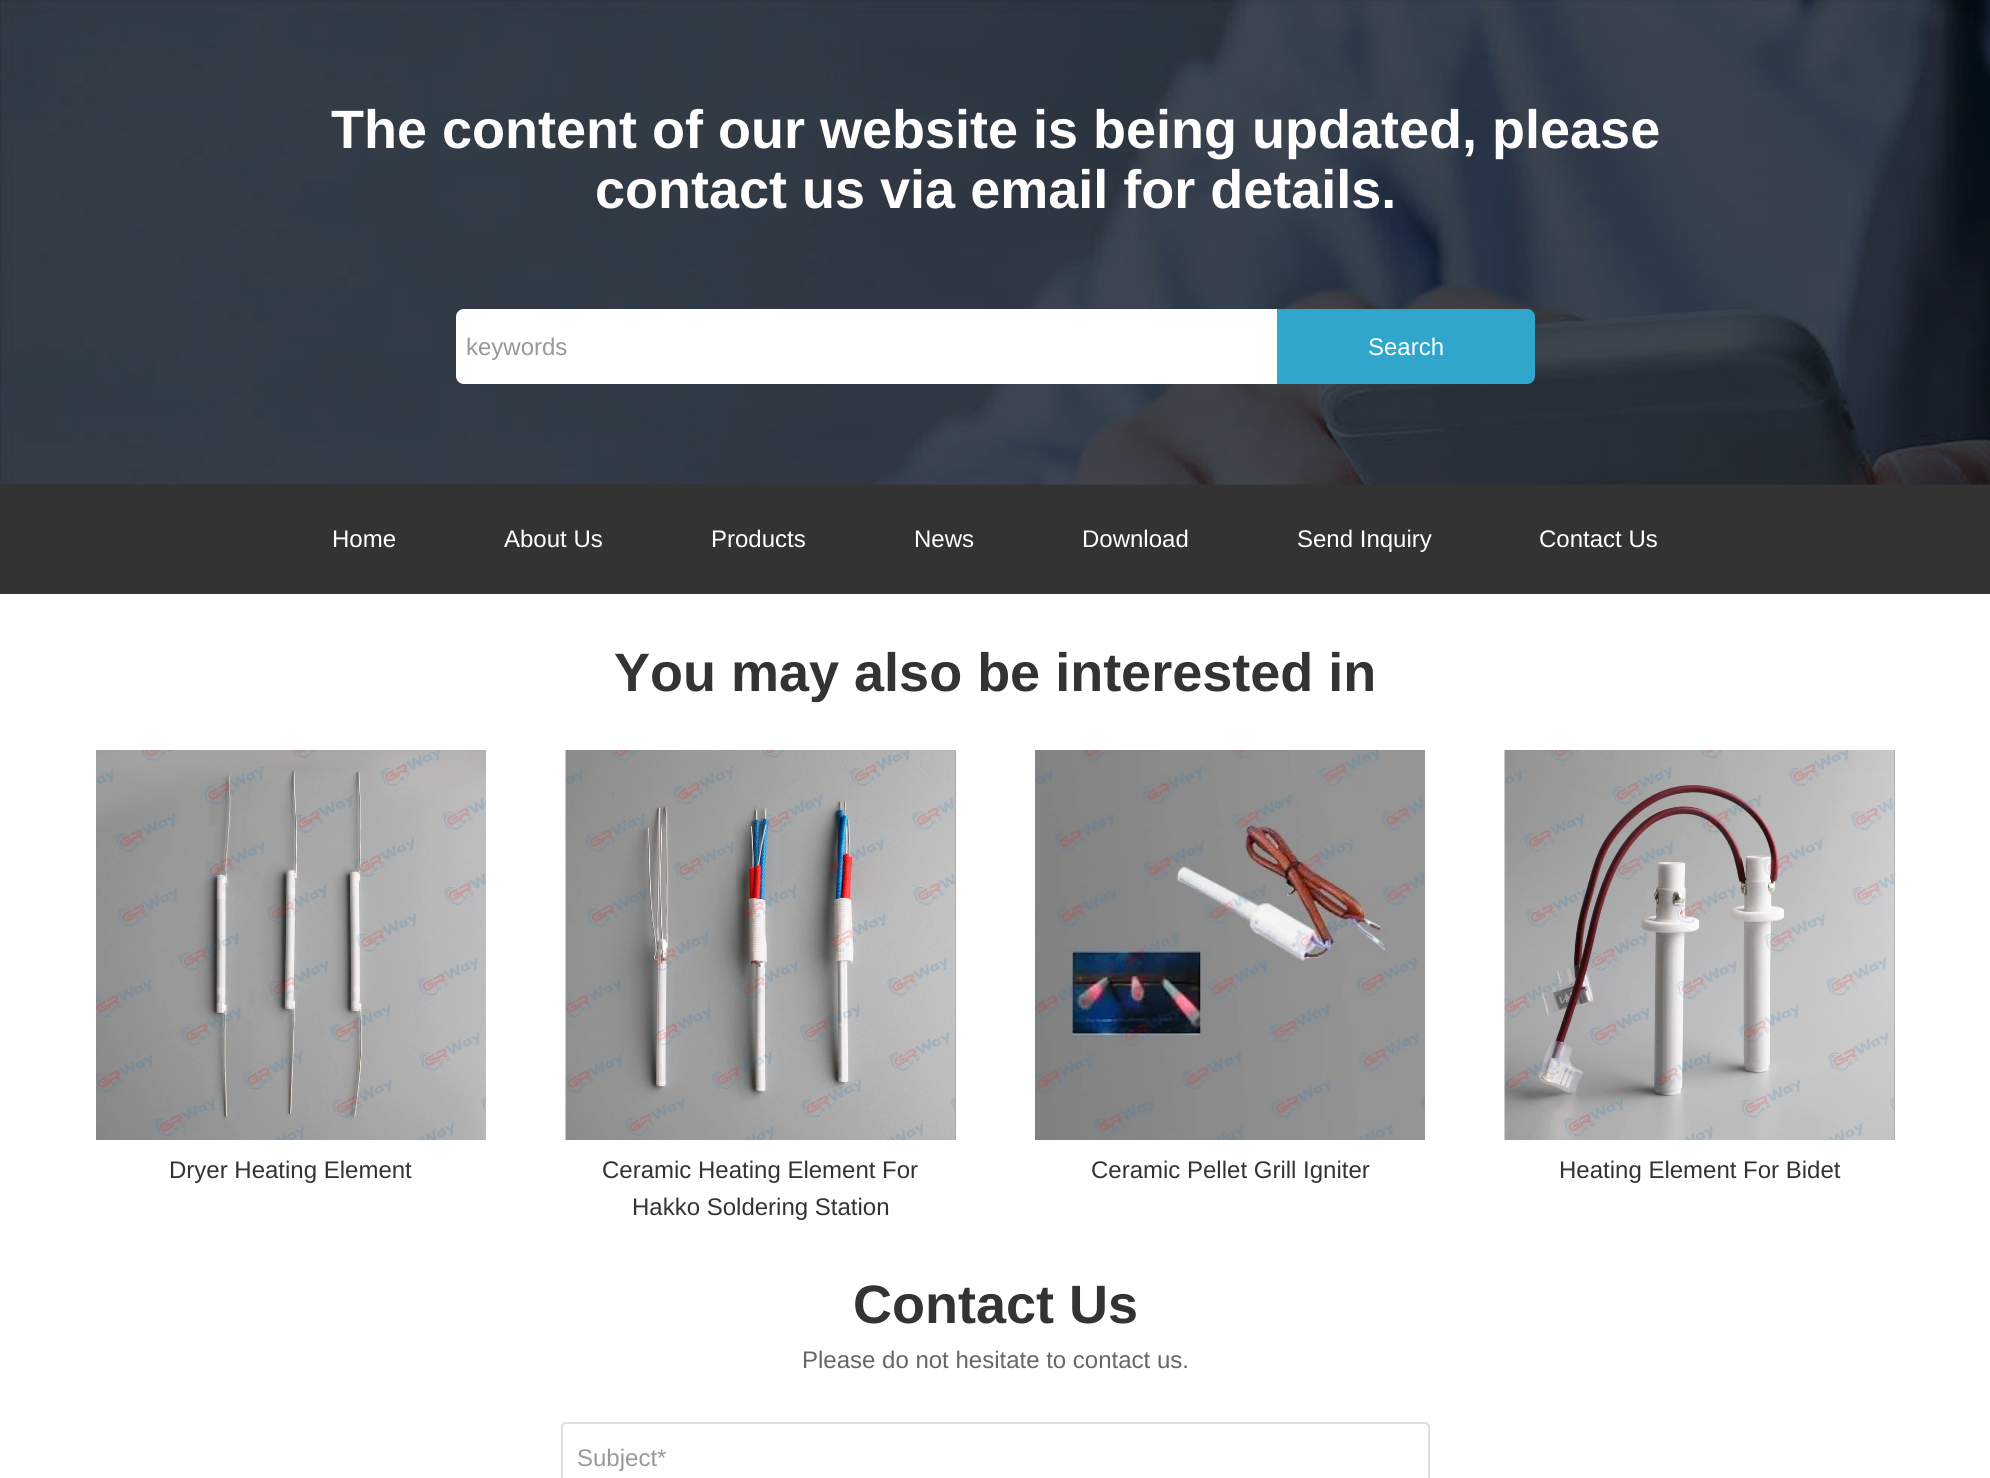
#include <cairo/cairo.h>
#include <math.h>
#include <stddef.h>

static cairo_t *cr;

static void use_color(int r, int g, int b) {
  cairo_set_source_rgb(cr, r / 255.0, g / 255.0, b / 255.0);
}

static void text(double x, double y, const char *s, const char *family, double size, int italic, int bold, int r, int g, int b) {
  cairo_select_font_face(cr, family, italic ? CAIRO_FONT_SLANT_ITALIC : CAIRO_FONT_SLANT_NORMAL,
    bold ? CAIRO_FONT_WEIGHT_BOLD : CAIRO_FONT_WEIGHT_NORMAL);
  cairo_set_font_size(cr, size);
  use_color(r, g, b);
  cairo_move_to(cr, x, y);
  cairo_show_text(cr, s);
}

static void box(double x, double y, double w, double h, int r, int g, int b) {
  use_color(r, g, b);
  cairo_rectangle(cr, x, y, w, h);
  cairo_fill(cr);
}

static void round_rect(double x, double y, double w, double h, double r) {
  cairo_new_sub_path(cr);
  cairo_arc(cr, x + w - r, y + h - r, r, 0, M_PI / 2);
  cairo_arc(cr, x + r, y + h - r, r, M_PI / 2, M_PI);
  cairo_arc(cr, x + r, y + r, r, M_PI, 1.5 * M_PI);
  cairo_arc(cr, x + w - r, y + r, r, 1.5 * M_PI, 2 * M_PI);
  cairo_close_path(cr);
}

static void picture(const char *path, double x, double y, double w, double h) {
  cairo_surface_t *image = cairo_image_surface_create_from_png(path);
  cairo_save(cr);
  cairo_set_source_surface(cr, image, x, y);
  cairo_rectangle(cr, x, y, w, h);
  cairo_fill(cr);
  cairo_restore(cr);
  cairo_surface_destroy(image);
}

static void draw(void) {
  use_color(255, 255, 255);
  cairo_paint(cr);
  box(0, 484, 1990, 110, 51, 51, 51);
  picture("img_01.png", 0, 0, 1990, 485);
  use_color(255, 255, 255);
  cairo_new_path(cr);
  cairo_move_to(cr, 464, 309);
  cairo_line_to(cr, 1277, 309);
  cairo_line_to(cr, 1277, 384);
  cairo_line_to(cr, 464, 384);
  cairo_curve_to(cr, 459.5, 384, 456, 380.5, 456, 376);
  cairo_line_to(cr, 456, 317);
  cairo_curve_to(cr, 456, 312.5, 459.5, 309, 464, 309);
  cairo_close_path(cr);
  cairo_fill(cr);
  use_color(49, 166, 204);
  cairo_new_path(cr);
  cairo_move_to(cr, 1277, 309);
  cairo_line_to(cr, 1527, 309);
  cairo_curve_to(cr, 1531.5, 309, 1535, 312.5, 1535, 317);
  cairo_line_to(cr, 1535, 376);
  cairo_curve_to(cr, 1535, 380.5, 1531.5, 384, 1527, 384);
  cairo_line_to(cr, 1277, 384);
  cairo_close_path(cr);
  cairo_fill(cr);
  picture("img_02.png", 96, 750, 390, 390);
  box(955, 750, 1, 390, 153, 153, 153);
  picture("img_03.png", 565, 750, 391, 390);
  picture("img_04.png", 1035, 750, 390, 390);
  box(1894, 750, 1, 390, 153, 153, 153);
  picture("img_05.png", 1504, 750, 391, 390);
  round_rect(562, 1423, 867, 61, 4);
  use_color(222, 222, 222);
  cairo_stroke(cr);
  text(331, 148, "The content of our website is being updated, please", "Liberation Sans", 54, 0, 1, 255, 255, 255);
  text(595, 208, "contact us via email for details.", "Liberation Sans", 54, 0, 1, 255, 255, 255);
  text(466, 355, "keywords", "Liberation Sans", 24, 0, 0, 153, 153, 153);
  text(1368, 355, "Search", "Liberation Sans", 24, 0, 0, 255, 255, 255);
  text(332, 547, "Home", "Liberation Sans", 24, 0, 0, 255, 255, 255);
  text(504, 547, "About Us", "Liberation Sans", 24, 0, 0, 255, 255, 255);
  text(711, 547, "Products", "Liberation Sans", 24, 0, 0, 255, 255, 255);
  text(914, 547, "News", "Liberation Sans", 24, 0, 0, 255, 255, 255);
  text(1082, 547, "Download", "Liberation Sans", 24, 0, 0, 255, 255, 255);
  text(1297, 547, "Send Inquiry", "Liberation Sans", 24, 0, 0, 255, 255, 255);
  text(1539, 547, "Contact Us", "Liberation Sans", 24, 0, 0, 255, 255, 255);
  text(614, 691, "You may also be interested in", "Liberation Sans", 54, 0, 1, 51, 51, 51);
  text(169, 1178, "Dryer Heating Element", "Liberation Sans", 24, 0, 0, 51, 51, 51);
  text(602, 1178, "Ceramic Heating Element For", "Liberation Sans", 24, 0, 0, 51, 51, 51);
  text(632, 1215, "Hakko Soldering Station", "Liberation Sans", 24, 0, 0, 51, 51, 51);
  text(1091, 1178, "Ceramic Pellet Grill Igniter", "Liberation Sans", 24, 0, 0, 51, 51, 51);
  text(1559, 1178, "Heating Element For Bidet", "Liberation Sans", 24, 0, 0, 51, 51, 51);
  text(853, 1323, "Contact Us", "Liberation Sans", 54, 0, 1, 51, 51, 51);
  text(802, 1368, "Please do not hesitate to contact us.", "Liberation Sans", 24, 0, 0, 102, 102, 102);
  text(577, 1466, "Subject*", "Liberation Sans", 24, 0, 0, 153, 153, 153);
}

int main(void) {
  cairo_surface_t *surface = cairo_image_surface_create(CAIRO_FORMAT_RGB24, 1990, 1478);
  cr = cairo_create(surface);
  cairo_font_options_t *options = cairo_font_options_create();
  cairo_font_options_set_hint_metrics(options, CAIRO_HINT_METRICS_OFF);
  cairo_font_options_set_hint_style(options, CAIRO_HINT_STYLE_NONE);
  cairo_set_font_options(cr, options);
  cairo_set_miter_limit(cr, 4);
  draw();
  cairo_surface_write_to_png(surface, "out.png");
  cairo_font_options_destroy(options);
  cairo_destroy(cr);
  cairo_surface_destroy(surface);
  return 0;
}
